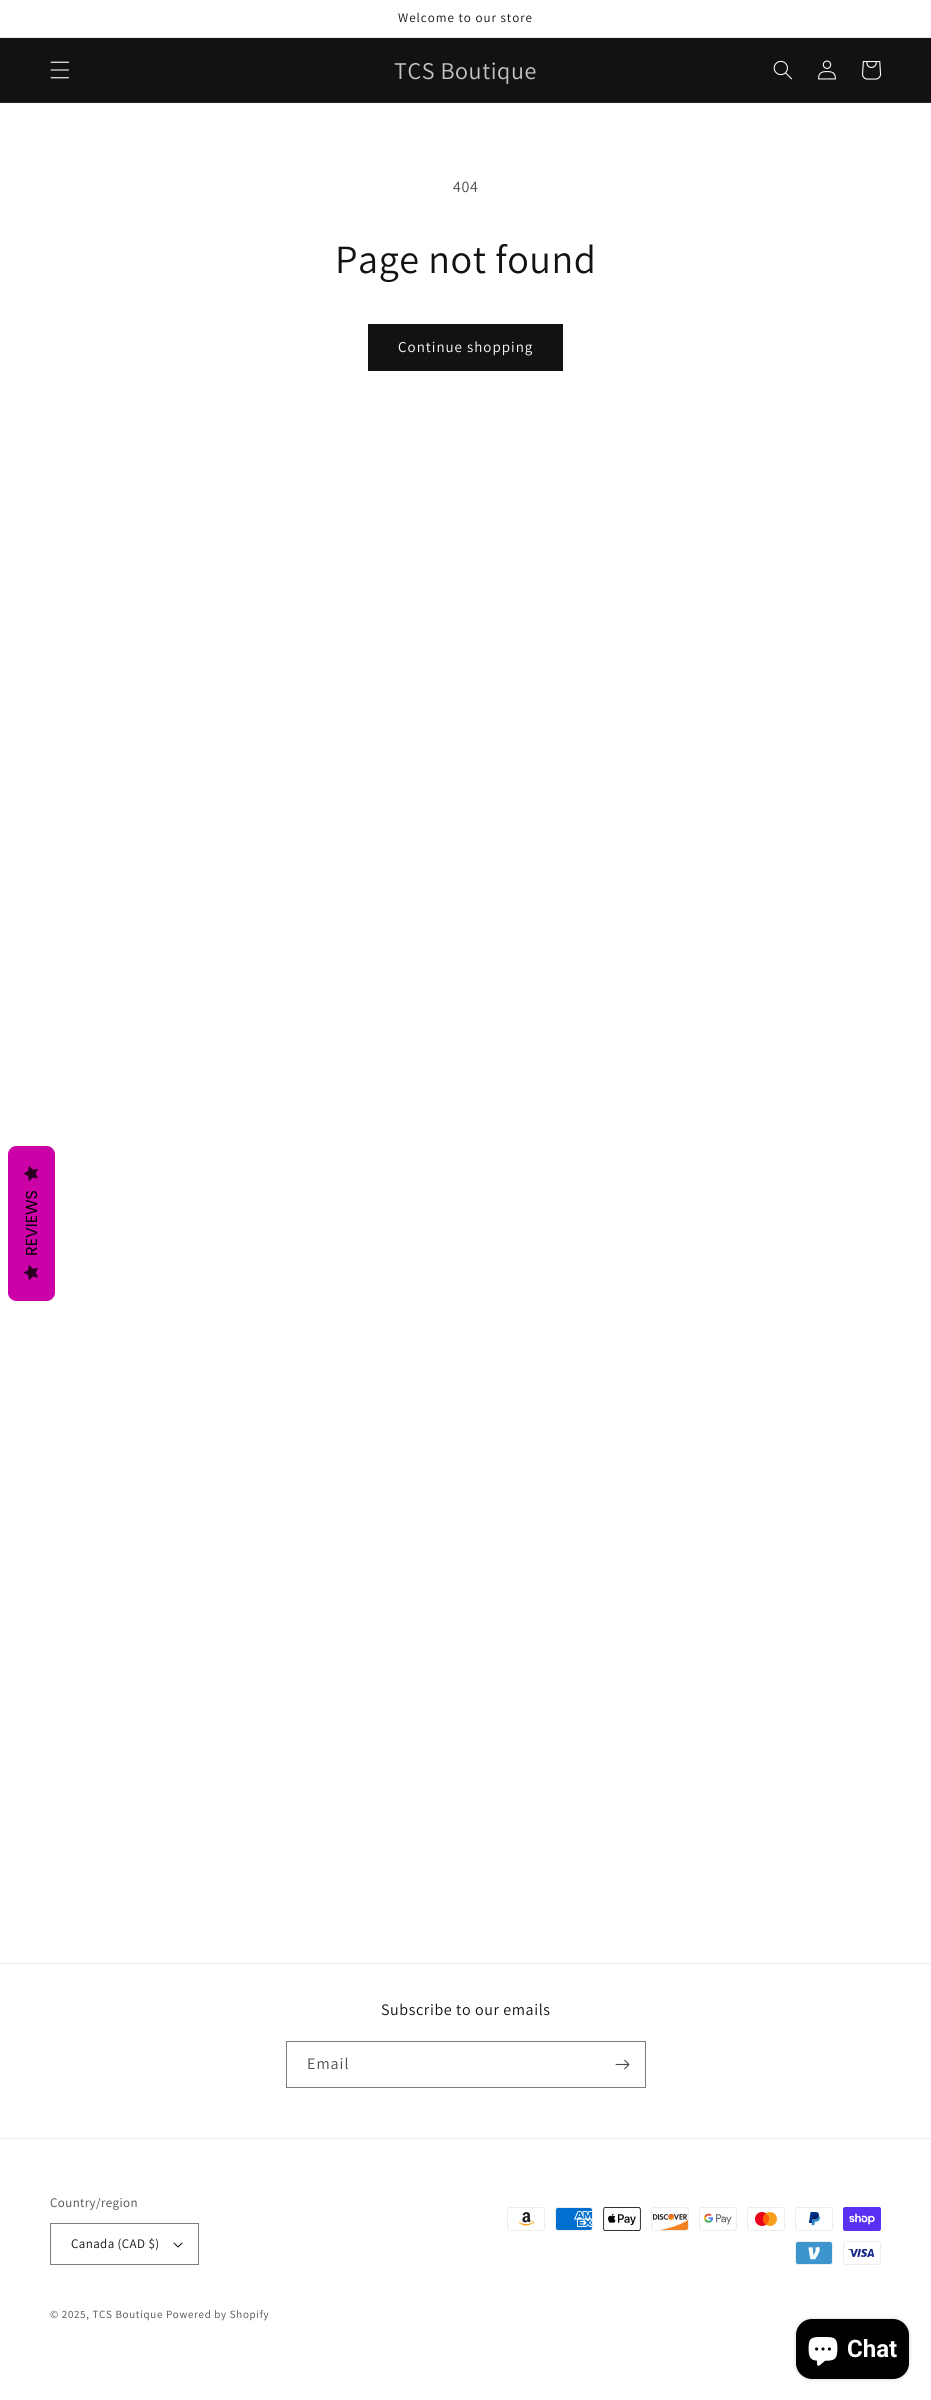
#include <cairo/cairo.h>
#include <math.h>
#include <stddef.h>

static cairo_t *cr;

static void use_color(int r, int g, int b) {
  cairo_set_source_rgb(cr, r / 255.0, g / 255.0, b / 255.0);
}

static void text(double x, double y, const char *s, const char *family, double size, int italic, int bold, int r, int g, int b) {
  cairo_select_font_face(cr, family, italic ? CAIRO_FONT_SLANT_ITALIC : CAIRO_FONT_SLANT_NORMAL,
    bold ? CAIRO_FONT_WEIGHT_BOLD : CAIRO_FONT_WEIGHT_NORMAL);
  cairo_set_font_size(cr, size);
  use_color(r, g, b);
  cairo_move_to(cr, x, y);
  cairo_show_text(cr, s);
}

static void spaced_text(double x, double y, const char *s, double letter, double word) {
  cairo_move_to(cr, x, y);
  while (*s) {
    char ch[5] = {0};
    int n = 0;
    do ch[n++] = *s++; while ((*s & 0xC0) == 0x80);
    cairo_show_text(cr, ch);
    cairo_rel_move_to(cr, letter + word * (*ch == ' '), 0);
  }
}

static void box(double x, double y, double w, double h, int r, int g, int b) {
  use_color(r, g, b);
  cairo_rectangle(cr, x, y, w, h);
  cairo_fill(cr);
}

static void round_rect(double x, double y, double w, double h, double r) {
  cairo_new_sub_path(cr);
  cairo_arc(cr, x + w - r, y + h - r, r, 0, M_PI / 2);
  cairo_arc(cr, x + r, y + h - r, r, M_PI / 2, M_PI);
  cairo_arc(cr, x + r, y + r, r, M_PI, 1.5 * M_PI);
  cairo_arc(cr, x + w - r, y + r, r, 1.5 * M_PI, 2 * M_PI);
  cairo_close_path(cr);
}

static void shadow(double x, double y, double w, double h, double r, double blur, double alpha) {
  cairo_push_group_with_content(cr, CAIRO_CONTENT_ALPHA);
  cairo_set_operator(cr, CAIRO_OPERATOR_SOURCE);
  for (int i = 15; i >= -15 && fmin(w, h) + blur * i / 3 > 0; i -= 2) {
    double e = blur * i / 6;
    cairo_set_source_rgba(cr, 0, 0, 0, alpha * erfc((i - 1) / 8.5) / 2);
    round_rect(x - e, y - e, w + 2 * e, h + 2 * e, fmax(0, fmin(r + e + blur * .6, fmin(w, h) / 2 + e)));
    cairo_fill(cr);
  }
  cairo_pattern_t *soft = cairo_pop_group(cr);
  cairo_mask(cr, soft);
  cairo_pattern_destroy(soft);
}

static void picture(const char *path, double x, double y, double w, double h) {
  cairo_surface_t *image = cairo_image_surface_create_from_png(path);
  cairo_save(cr);
  cairo_set_source_surface(cr, image, x, y);
  cairo_rectangle(cr, x, y, w, h);
  cairo_fill(cr);
  cairo_restore(cr);
  cairo_surface_destroy(image);
}

static void draw(void) {
  use_color(255, 255, 255);
  cairo_paint(cr);
  box(0, 37, 931, 1, 236, 236, 236);
  box(0, 38, 931, 64, 18, 18, 18);
  box(0, 102, 931, 1, 37, 37, 37);
  picture("img_01.png", 50, 61, 20, 18);
  picture("img_02.png", 773, 60, 19, 20);
  picture("img_03.png", 818, 60, 18, 20);
  picture("img_04.png", 862, 61, 20, 19);
  box(368, 324, 195, 47, 18, 18, 18);
  use_color(204, 0, 167);
  cairo_new_path(cr);
  cairo_move_to(cr, 8, 1293);
  cairo_line_to(cr, 8, 1154);
  cairo_curve_to(cr, 8, 1150, 12, 1146, 16, 1146);
  cairo_line_to(cr, 47, 1146);
  cairo_curve_to(cr, 51, 1146, 55, 1150, 55, 1154);
  cairo_line_to(cr, 55, 1293);
  cairo_curve_to(cr, 55, 1297, 51, 1301, 47, 1301);
  cairo_line_to(cr, 16, 1301);
  cairo_curve_to(cr, 12, 1301, 8, 1297, 8, 1293);
  cairo_close_path(cr);
  cairo_fill(cr);
  picture("img_05.png", 23, 1166, 15, 15);
  picture("img_05.png", 23, 1265, 15, 15);
  box(0, 1963, 931, 1, 236, 236, 236);
  cairo_rectangle(cr, 286.5, 2041.5, 359, 46);
  use_color(125, 125, 125);
  cairo_set_line_width(cr, 1);
  cairo_stroke(cr);
  picture("img_06.png", 615, 2059, 15, 11);
  box(0, 2138, 931, 1, 236, 236, 236);
  picture("img_07.png", 173, 2242, 10, 6);
  cairo_rectangle(cr, 50.5, 2223.5, 148, 41);
  use_color(125, 125, 125);
  cairo_stroke(cr);
  picture("img_08.png", 507, 2207, 38, 24);
  picture("img_09.png", 555, 2207, 38, 24);
  picture("img_10.png", 603, 2207, 38, 24);
  picture("img_11.png", 651, 2207, 38, 24);
  picture("img_12.png", 699, 2207, 38, 24);
  picture("img_13.png", 747, 2207, 38, 24);
  picture("img_14.png", 795, 2207, 38, 24);
  picture("img_15.png", 843, 2207, 38, 24);
  picture("img_16.png", 795, 2241, 38, 24);
  picture("img_17.png", 843, 2241, 38, 24);
  use_color(0, 0, 0);
  shadow(796, 2319, 113, 60, 16, 2.5, 0.15);
  use_color(0, 0, 0);
  round_rect(796, 2319, 113, 60, 16);
  cairo_fill(cr);
  picture("img_18.png", 808, 2337, 30, 29);
  cairo_select_font_face(cr, "Assistant", CAIRO_FONT_SLANT_NORMAL, CAIRO_FONT_WEIGHT_NORMAL);
  cairo_set_font_size(cr, 13);
  use_color(18, 18, 18);
  spaced_text(398, 22, "Welcome to our store", 1, 0);
  cairo_set_font_size(cr, 24);
  use_color(196, 196, 196);
  spaced_text(394, 79, "TCS Boutique", 0.6, 0);
  cairo_set_font_size(cr, 16);
  use_color(77, 77, 77);
  spaced_text(453, 192, "404", 0.6, 0);
  cairo_set_font_size(cr, 40);
  use_color(18, 18, 18);
  spaced_text(335, 273, "Page not found", 0.6, 0);
  cairo_set_font_size(cr, 15);
  use_color(255, 255, 255);
  spaced_text(398, 352, "Continue shopping", 1, 0);
  cairo_save(cr);
  cairo_translate(cr, 37, 1256);
  cairo_rotate(cr, -90 * M_PI / 180);
  text(0, 0, "REVIEWS", "Poppins", 16, 0, 0, 0, 0, 0);
  cairo_restore(cr);
  cairo_select_font_face(cr, "Assistant", CAIRO_FONT_SLANT_NORMAL, CAIRO_FONT_WEIGHT_NORMAL);
  cairo_set_font_size(cr, 16);
  use_color(18, 18, 18);
  spaced_text(381, 2015, "Subscribe to our emails", 0.6, 0);
  use_color(77, 77, 77);
  spaced_text(307, 2069, "Email", 1, 0);
  cairo_set_font_size(cr, 13);
  spaced_text(50, 2207, "Country/region", 0.4, 0);
  use_color(18, 18, 18);
  spaced_text(71, 2248, "Canada (CAD $)", 0.4, 0);
  cairo_set_font_size(cr, 11);
  use_color(77, 77, 77);
  spaced_text(50, 2318, "© 2025, TCS Boutique Powered by Shopify", 0.7, 0);
  text(847, 2357, "Chat", "Roboto", 24, 0, 1, 255, 255, 255);
}

int main(void) {
  cairo_surface_t *surface = cairo_image_surface_create(CAIRO_FORMAT_RGB24, 931, 2400);
  cr = cairo_create(surface);
  cairo_font_options_t *options = cairo_font_options_create();
  cairo_font_options_set_hint_metrics(options, CAIRO_HINT_METRICS_OFF);
  cairo_font_options_set_hint_style(options, CAIRO_HINT_STYLE_NONE);
  cairo_set_font_options(cr, options);
  cairo_set_miter_limit(cr, 4);
  draw();
  cairo_surface_write_to_png(surface, "out.png");
  cairo_font_options_destroy(options);
  cairo_destroy(cr);
  cairo_surface_destroy(surface);
  return 0;
}
